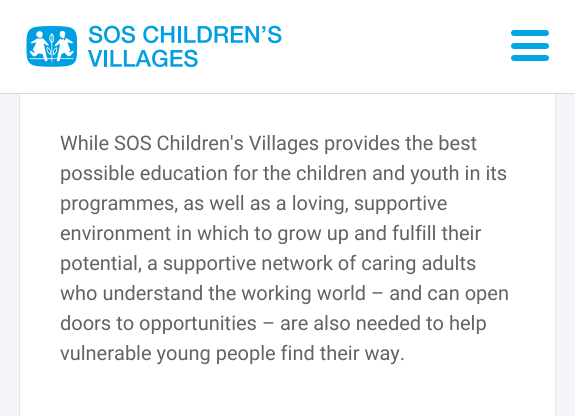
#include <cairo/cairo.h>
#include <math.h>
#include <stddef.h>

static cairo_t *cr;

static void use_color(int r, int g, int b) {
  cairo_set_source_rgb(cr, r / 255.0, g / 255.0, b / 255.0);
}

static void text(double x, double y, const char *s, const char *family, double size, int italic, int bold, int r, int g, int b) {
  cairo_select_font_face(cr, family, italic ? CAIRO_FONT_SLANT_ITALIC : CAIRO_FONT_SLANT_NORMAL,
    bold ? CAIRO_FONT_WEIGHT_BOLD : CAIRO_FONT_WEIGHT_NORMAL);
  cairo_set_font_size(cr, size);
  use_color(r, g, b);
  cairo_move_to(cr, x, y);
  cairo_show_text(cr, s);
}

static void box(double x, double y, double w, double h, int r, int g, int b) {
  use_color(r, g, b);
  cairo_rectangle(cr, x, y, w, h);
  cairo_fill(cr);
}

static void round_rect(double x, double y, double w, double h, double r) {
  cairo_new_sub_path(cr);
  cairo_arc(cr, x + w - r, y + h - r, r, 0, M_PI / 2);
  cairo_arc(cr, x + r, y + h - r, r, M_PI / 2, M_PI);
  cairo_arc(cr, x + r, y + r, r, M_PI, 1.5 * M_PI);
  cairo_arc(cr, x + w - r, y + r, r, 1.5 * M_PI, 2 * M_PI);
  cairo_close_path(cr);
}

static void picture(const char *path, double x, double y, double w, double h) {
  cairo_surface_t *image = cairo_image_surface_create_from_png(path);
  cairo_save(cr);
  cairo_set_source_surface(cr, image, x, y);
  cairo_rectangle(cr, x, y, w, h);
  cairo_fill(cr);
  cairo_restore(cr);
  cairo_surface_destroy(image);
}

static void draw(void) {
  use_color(243, 245, 248);
  cairo_paint(cr);
  use_color(255, 255, 255);
  cairo_new_path(cr);
  cairo_move_to(cr, 31, -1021);
  cairo_line_to(cr, 544, -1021);
  cairo_curve_to(cr, 550, -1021, 555, -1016, 555, -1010);
  cairo_line_to(cr, 555, 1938);
  cairo_curve_to(cr, 555, 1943, 550, 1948, 544, 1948);
  cairo_line_to(cr, 31, 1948);
  cairo_curve_to(cr, 25, 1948, 20, 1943, 20, 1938);
  cairo_line_to(cr, 20, -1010);
  cairo_curve_to(cr, 20, -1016, 25, -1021, 31, -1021);
  cairo_close_path(cr);
  cairo_fill(cr);
  cairo_rectangle(cr, 19.5, -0.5, 536, 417);
  use_color(230, 230, 230);
  cairo_set_line_width(cr, 1);
  cairo_stroke(cr);
  box(0, 0, 575, 93, 255, 255, 255);
  box(0, 93, 575, 1, 211, 218, 229);
  picture("img_01.png", 26, 25, 256, 43);
  use_color(0, 167, 228);
  round_rect(511, 30, 38, 6, 3);
  cairo_fill(cr);
  round_rect(511, 43, 38, 6, 3);
  cairo_fill(cr);
  round_rect(511, 55, 38, 6, 3);
  cairo_fill(cr);
  text(60, 150, "While SOS Children's Villages provides the best", "Roboto", 20, 0, 0, 94, 100, 104);
  text(60, 180, "possible education for the children and youth in its", "Roboto", 20, 0, 0, 94, 100, 104);
  text(60, 210, "programmes, as well as a loving, supportive", "Roboto", 20, 0, 0, 94, 100, 104);
  text(60, 240, "environment in which to grow up and fulfill their", "Roboto", 20, 0, 0, 94, 100, 104);
  text(60, 270, "potential, a supportive network of caring adults", "Roboto", 20, 0, 0, 94, 100, 104);
  text(60, 300, "who understand the working world – and can open", "Roboto", 20, 0, 0, 94, 100, 104);
  text(60, 330, "doors to opportunities – are also needed to help", "Roboto", 20, 0, 0, 94, 100, 104);
  text(60, 360, "vulnerable young people find their way.", "Roboto", 20, 0, 0, 94, 100, 104);
}

int main(void) {
  cairo_surface_t *surface = cairo_image_surface_create(CAIRO_FORMAT_RGB24, 575, 416);
  cr = cairo_create(surface);
  cairo_font_options_t *options = cairo_font_options_create();
  cairo_font_options_set_hint_metrics(options, CAIRO_HINT_METRICS_OFF);
  cairo_font_options_set_hint_style(options, CAIRO_HINT_STYLE_NONE);
  cairo_set_font_options(cr, options);
  cairo_set_miter_limit(cr, 4);
  draw();
  cairo_surface_write_to_png(surface, "out.png");
  cairo_font_options_destroy(options);
  cairo_destroy(cr);
  cairo_surface_destroy(surface);
  return 0;
}
